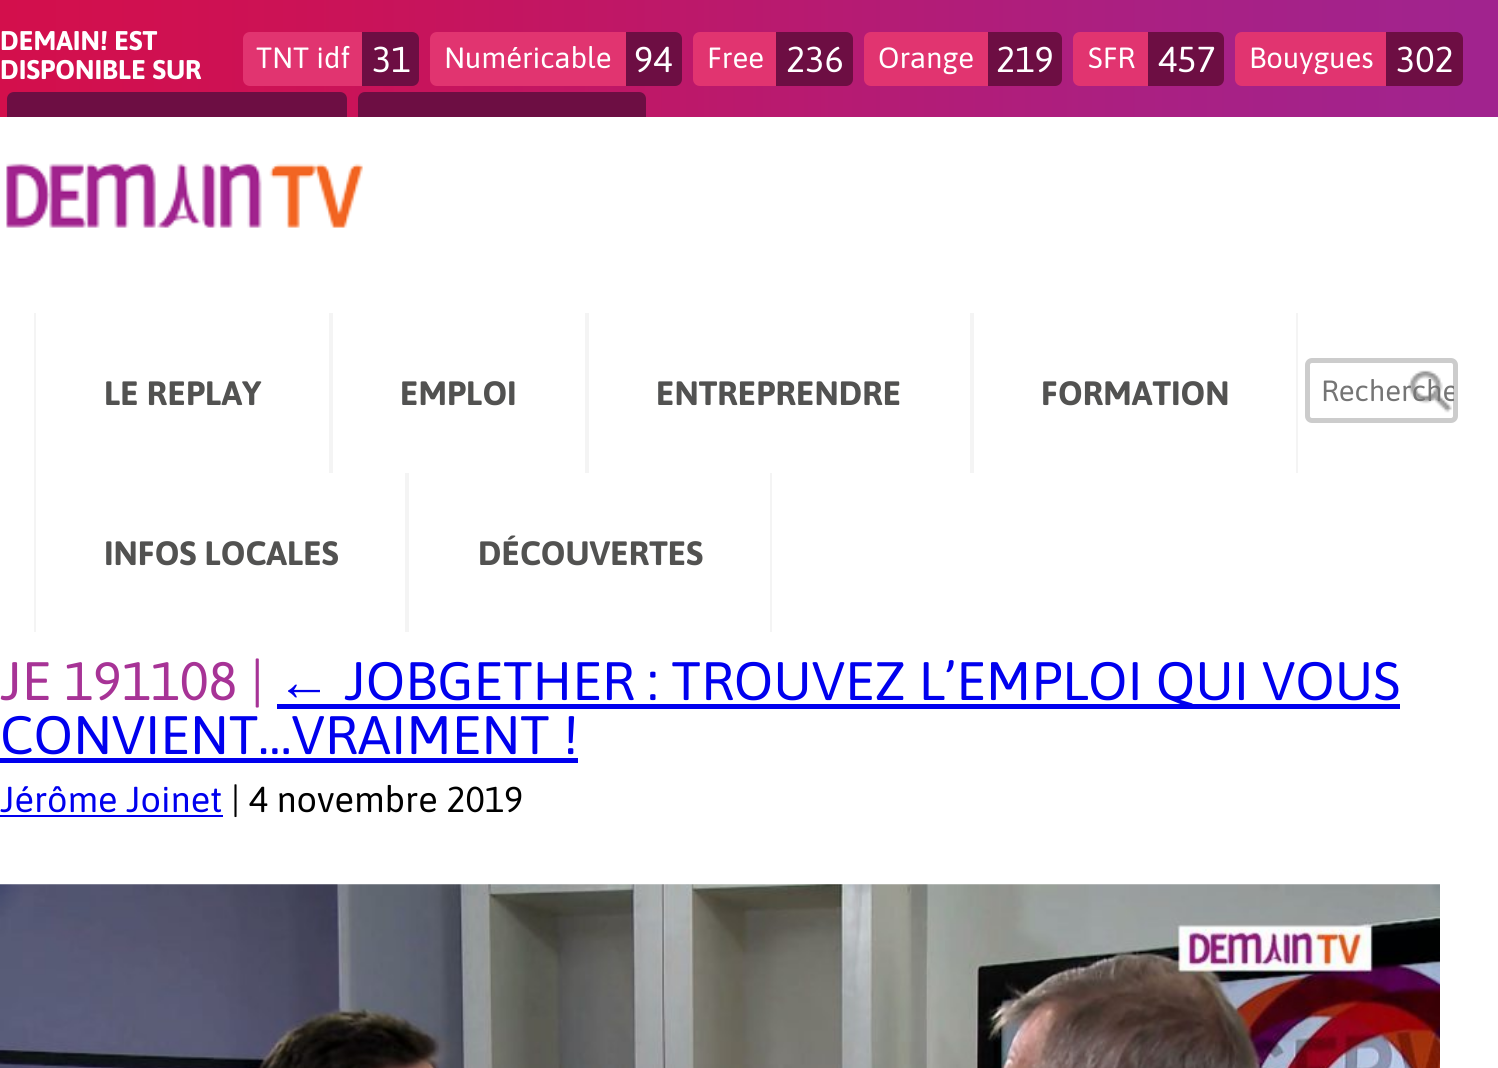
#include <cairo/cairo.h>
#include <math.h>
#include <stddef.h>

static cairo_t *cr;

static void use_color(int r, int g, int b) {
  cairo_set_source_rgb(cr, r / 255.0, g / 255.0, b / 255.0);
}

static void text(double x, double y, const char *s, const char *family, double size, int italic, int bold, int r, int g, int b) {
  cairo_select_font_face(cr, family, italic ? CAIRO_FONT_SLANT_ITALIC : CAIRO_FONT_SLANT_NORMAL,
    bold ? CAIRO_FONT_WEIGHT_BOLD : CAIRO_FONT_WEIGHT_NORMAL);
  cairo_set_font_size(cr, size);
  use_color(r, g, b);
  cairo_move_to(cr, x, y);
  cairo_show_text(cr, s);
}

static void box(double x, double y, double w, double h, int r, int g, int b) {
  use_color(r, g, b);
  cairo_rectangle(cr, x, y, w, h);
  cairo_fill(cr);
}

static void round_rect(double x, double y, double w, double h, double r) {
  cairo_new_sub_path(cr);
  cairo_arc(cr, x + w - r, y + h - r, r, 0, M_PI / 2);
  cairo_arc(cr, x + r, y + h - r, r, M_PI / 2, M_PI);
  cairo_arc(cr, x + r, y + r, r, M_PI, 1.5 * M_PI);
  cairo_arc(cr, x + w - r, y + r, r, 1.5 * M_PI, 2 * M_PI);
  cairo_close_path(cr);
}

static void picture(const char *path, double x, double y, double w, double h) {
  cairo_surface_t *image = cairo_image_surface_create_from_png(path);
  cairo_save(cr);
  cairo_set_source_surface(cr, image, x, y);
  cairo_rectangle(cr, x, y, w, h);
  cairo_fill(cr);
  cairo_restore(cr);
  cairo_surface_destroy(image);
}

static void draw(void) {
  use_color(255, 255, 255);
  cairo_paint(cr);
  picture("img_01.png", 0, 0, 1498, 117);
  use_color(225, 52, 112);
  cairo_new_path(cr);
  cairo_move_to(cr, 250, 32);
  cairo_line_to(cr, 362, 32);
  cairo_line_to(cr, 362, 86);
  cairo_line_to(cr, 250, 86);
  cairo_curve_to(cr, 246, 86, 243, 83, 243, 79);
  cairo_line_to(cr, 243, 39);
  cairo_curve_to(cr, 243, 35, 246, 32, 250, 32);
  cairo_close_path(cr);
  cairo_fill(cr);
  use_color(109, 14, 67);
  cairo_new_path(cr);
  cairo_move_to(cr, 362, 32);
  cairo_line_to(cr, 412, 32);
  cairo_curve_to(cr, 416, 32, 419, 35, 419, 39);
  cairo_line_to(cr, 419, 79);
  cairo_curve_to(cr, 419, 83, 416, 86, 412, 86);
  cairo_line_to(cr, 362, 86);
  cairo_close_path(cr);
  cairo_fill(cr);
  use_color(225, 52, 112);
  cairo_new_path(cr);
  cairo_move_to(cr, 437, 32);
  cairo_line_to(cr, 626, 32);
  cairo_line_to(cr, 626, 86);
  cairo_line_to(cr, 437, 86);
  cairo_curve_to(cr, 433, 86, 430, 83, 430, 79);
  cairo_line_to(cr, 430, 39);
  cairo_curve_to(cr, 430, 35, 433, 32, 437, 32);
  cairo_close_path(cr);
  cairo_fill(cr);
  use_color(109, 14, 67);
  cairo_new_path(cr);
  cairo_move_to(cr, 626, 32);
  cairo_line_to(cr, 675, 32);
  cairo_curve_to(cr, 679, 32, 682, 35, 682, 39);
  cairo_line_to(cr, 682, 79);
  cairo_curve_to(cr, 682, 83, 679, 86, 675, 86);
  cairo_line_to(cr, 626, 86);
  cairo_close_path(cr);
  cairo_fill(cr);
  use_color(225, 52, 112);
  cairo_new_path(cr);
  cairo_move_to(cr, 700, 32);
  cairo_line_to(cr, 776, 32);
  cairo_line_to(cr, 776, 86);
  cairo_line_to(cr, 700, 86);
  cairo_curve_to(cr, 696, 86, 693, 83, 693, 79);
  cairo_line_to(cr, 693, 39);
  cairo_curve_to(cr, 693, 35, 696, 32, 700, 32);
  cairo_close_path(cr);
  cairo_fill(cr);
  use_color(109, 14, 67);
  cairo_new_path(cr);
  cairo_move_to(cr, 776, 32);
  cairo_line_to(cr, 846, 32);
  cairo_curve_to(cr, 850, 32, 853, 35, 853, 39);
  cairo_line_to(cr, 853, 79);
  cairo_curve_to(cr, 853, 83, 850, 86, 846, 86);
  cairo_line_to(cr, 776, 86);
  cairo_close_path(cr);
  cairo_fill(cr);
  use_color(225, 52, 112);
  cairo_new_path(cr);
  cairo_move_to(cr, 871, 32);
  cairo_line_to(cr, 988, 32);
  cairo_line_to(cr, 988, 86);
  cairo_line_to(cr, 871, 86);
  cairo_curve_to(cr, 867, 86, 864, 83, 864, 79);
  cairo_line_to(cr, 864, 39);
  cairo_curve_to(cr, 864, 35, 867, 32, 871, 32);
  cairo_close_path(cr);
  cairo_fill(cr);
  use_color(109, 14, 67);
  cairo_new_path(cr);
  cairo_move_to(cr, 988, 32);
  cairo_line_to(cr, 1055, 32);
  cairo_curve_to(cr, 1059, 32, 1062, 35, 1062, 39);
  cairo_line_to(cr, 1062, 79);
  cairo_curve_to(cr, 1062, 83, 1059, 86, 1055, 86);
  cairo_line_to(cr, 988, 86);
  cairo_close_path(cr);
  cairo_fill(cr);
  use_color(225, 52, 112);
  cairo_new_path(cr);
  cairo_move_to(cr, 1080, 32);
  cairo_line_to(cr, 1148, 32);
  cairo_line_to(cr, 1148, 86);
  cairo_line_to(cr, 1080, 86);
  cairo_curve_to(cr, 1076, 86, 1073, 83, 1073, 79);
  cairo_line_to(cr, 1073, 39);
  cairo_curve_to(cr, 1073, 35, 1076, 32, 1080, 32);
  cairo_close_path(cr);
  cairo_fill(cr);
  use_color(109, 14, 67);
  cairo_new_path(cr);
  cairo_move_to(cr, 1148, 32);
  cairo_line_to(cr, 1217, 32);
  cairo_curve_to(cr, 1221, 32, 1224, 35, 1224, 39);
  cairo_line_to(cr, 1224, 79);
  cairo_curve_to(cr, 1224, 83, 1221, 86, 1217, 86);
  cairo_line_to(cr, 1148, 86);
  cairo_close_path(cr);
  cairo_fill(cr);
  use_color(225, 52, 112);
  cairo_new_path(cr);
  cairo_move_to(cr, 1242, 32);
  cairo_line_to(cr, 1386, 32);
  cairo_line_to(cr, 1386, 86);
  cairo_line_to(cr, 1242, 86);
  cairo_curve_to(cr, 1238, 86, 1235, 83, 1235, 79);
  cairo_line_to(cr, 1235, 39);
  cairo_curve_to(cr, 1235, 35, 1238, 32, 1242, 32);
  cairo_close_path(cr);
  cairo_fill(cr);
  use_color(109, 14, 67);
  cairo_new_path(cr);
  cairo_move_to(cr, 1386, 32);
  cairo_line_to(cr, 1456, 32);
  cairo_curve_to(cr, 1460, 32, 1463, 35, 1463, 39);
  cairo_line_to(cr, 1463, 79);
  cairo_curve_to(cr, 1463, 83, 1460, 86, 1456, 86);
  cairo_line_to(cr, 1386, 86);
  cairo_close_path(cr);
  cairo_fill(cr);
  cairo_new_path(cr);
  cairo_move_to(cr, 14, 92);
  cairo_line_to(cr, 340, 92);
  cairo_curve_to(cr, 344, 92, 347, 95, 347, 99);
  cairo_line_to(cr, 347, 117);
  cairo_line_to(cr, 7, 117);
  cairo_line_to(cr, 7, 99);
  cairo_curve_to(cr, 7, 95, 10, 92, 14, 92);
  cairo_close_path(cr);
  cairo_fill(cr);
  cairo_new_path(cr);
  cairo_move_to(cr, 365, 92);
  cairo_line_to(cr, 639, 92);
  cairo_curve_to(cr, 643, 92, 646, 95, 646, 99);
  cairo_line_to(cr, 646, 117);
  cairo_line_to(cr, 358, 117);
  cairo_line_to(cr, 358, 99);
  cairo_curve_to(cr, 358, 95, 361, 92, 365, 92);
  cairo_close_path(cr);
  cairo_fill(cr);
  picture("img_02.png", 6, 163, 357, 65);
  box(329, 313, 4, 160, 244, 244, 244);
  box(34, 313, 2, 319, 244, 244, 244);
  box(585, 313, 4, 160, 244, 244, 244);
  box(970, 313, 4, 160, 244, 244, 244);
  box(1296, 313, 2, 160, 244, 244, 244);
  box(405, 473, 4, 159, 244, 244, 244);
  box(770, 473, 2, 159, 244, 244, 244);
  picture("img_03.png", 1408, 370, 44, 43);
  round_rect(1307.5, 360.5, 148, 60, 4.5);
  use_color(204, 204, 204);
  cairo_set_line_width(cr, 5);
  cairo_stroke(cr);
  box(277, 704, 1123, 5, 0, 0, 238);
  box(0, 758, 578, 5, 0, 0, 238);
  box(0, 815, 223, 2, 0, 0, 238);
  picture("img_04.png", 0, 884, 1440, 184);
  text(0, 50, "DEMAIN! EST", "Asap", 27, 0, 1, 255, 255, 255);
  text(0, 79, "DISPONIBLE SUR", "Asap", 27, 0, 1, 255, 255, 255);
  text(256, 68, "TNT idf", "Asap", 29.25, 0, 0, 255, 255, 255);
  text(372, 72, "31", "Asap", 36, 0, 0, 255, 255, 255);
  text(444, 68, "Numéricable", "Asap", 29.25, 0, 0, 255, 255, 255);
  text(634, 72, "94", "Asap", 36, 0, 0, 255, 255, 255);
  text(707, 68, "Free", "Asap", 29.25, 0, 0, 255, 255, 255);
  text(786, 72, "236", "Asap", 36, 0, 0, 255, 255, 255);
  text(878, 68, "Orange", "Asap", 29.25, 0, 0, 255, 255, 255);
  text(996, 72, "219", "Asap", 36, 0, 0, 255, 255, 255);
  text(1088, 68, "SFR", "Asap", 29.25, 0, 0, 255, 255, 255);
  text(1158, 72, "457", "Asap", 36, 0, 0, 255, 255, 255);
  text(1249, 68, "Bouygues", "Asap", 29.25, 0, 0, 255, 255, 255);
  text(1396, 72, "302", "Asap", 36, 0, 0, 255, 255, 255);
  text(104, 405, "LE REPLAY", "Asap", 33.75, 0, 1, 82, 82, 81);
  text(400, 405, "EMPLOI", "Asap", 33.75, 0, 1, 82, 82, 81);
  text(656, 405, "ENTREPRENDRE", "Asap", 33.75, 0, 1, 82, 82, 81);
  text(1041, 405, "FORMATION", "Asap", 33.75, 0, 1, 82, 82, 81);
  text(104, 565, "INFOS LOCALES", "Asap", 33.75, 0, 1, 82, 82, 81);
  text(478, 565, "DÉCOUVERTES", "Asap", 33.75, 0, 1, 82, 82, 81);
  cairo_save(cr);
  round_rect(1310, 362, 144, 57, 2);
  cairo_clip(cr);
  text(1321, 401, "Recherche", "Asap", 29.25, 0, 0, 117, 117, 117);
  cairo_restore(cr);
  text(0, 700, "JE 191108 |", "Asap", 54, 0, 0, 167, 51, 150);
  text(277, 700, "←", "Liberation Sans", 54, 0, 0, 0, 0, 238);
  text(344, 700, "JOBGETHER : TROUVEZ L’EMPLOI QUI VOUS", "Asap", 54, 0, 0, 0, 0, 238);
  text(0, 754, "CONVIENT…VRAIMENT !", "Asap", 54, 0, 0, 0, 0, 238);
  text(0, 812, "Jérôme Joinet", "Asap", 36, 0, 0, 0, 0, 238);
  text(231, 812, "| 4 novembre 2019", "Asap", 36, 0, 0, 0, 0, 0);
}

int main(void) {
  cairo_surface_t *surface = cairo_image_surface_create(CAIRO_FORMAT_RGB24, 1498, 1068);
  cr = cairo_create(surface);
  cairo_font_options_t *options = cairo_font_options_create();
  cairo_font_options_set_hint_metrics(options, CAIRO_HINT_METRICS_OFF);
  cairo_font_options_set_hint_style(options, CAIRO_HINT_STYLE_NONE);
  cairo_set_font_options(cr, options);
  cairo_set_miter_limit(cr, 4);
  draw();
  cairo_surface_write_to_png(surface, "out.png");
  cairo_font_options_destroy(options);
  cairo_destroy(cr);
  cairo_surface_destroy(surface);
  return 0;
}
